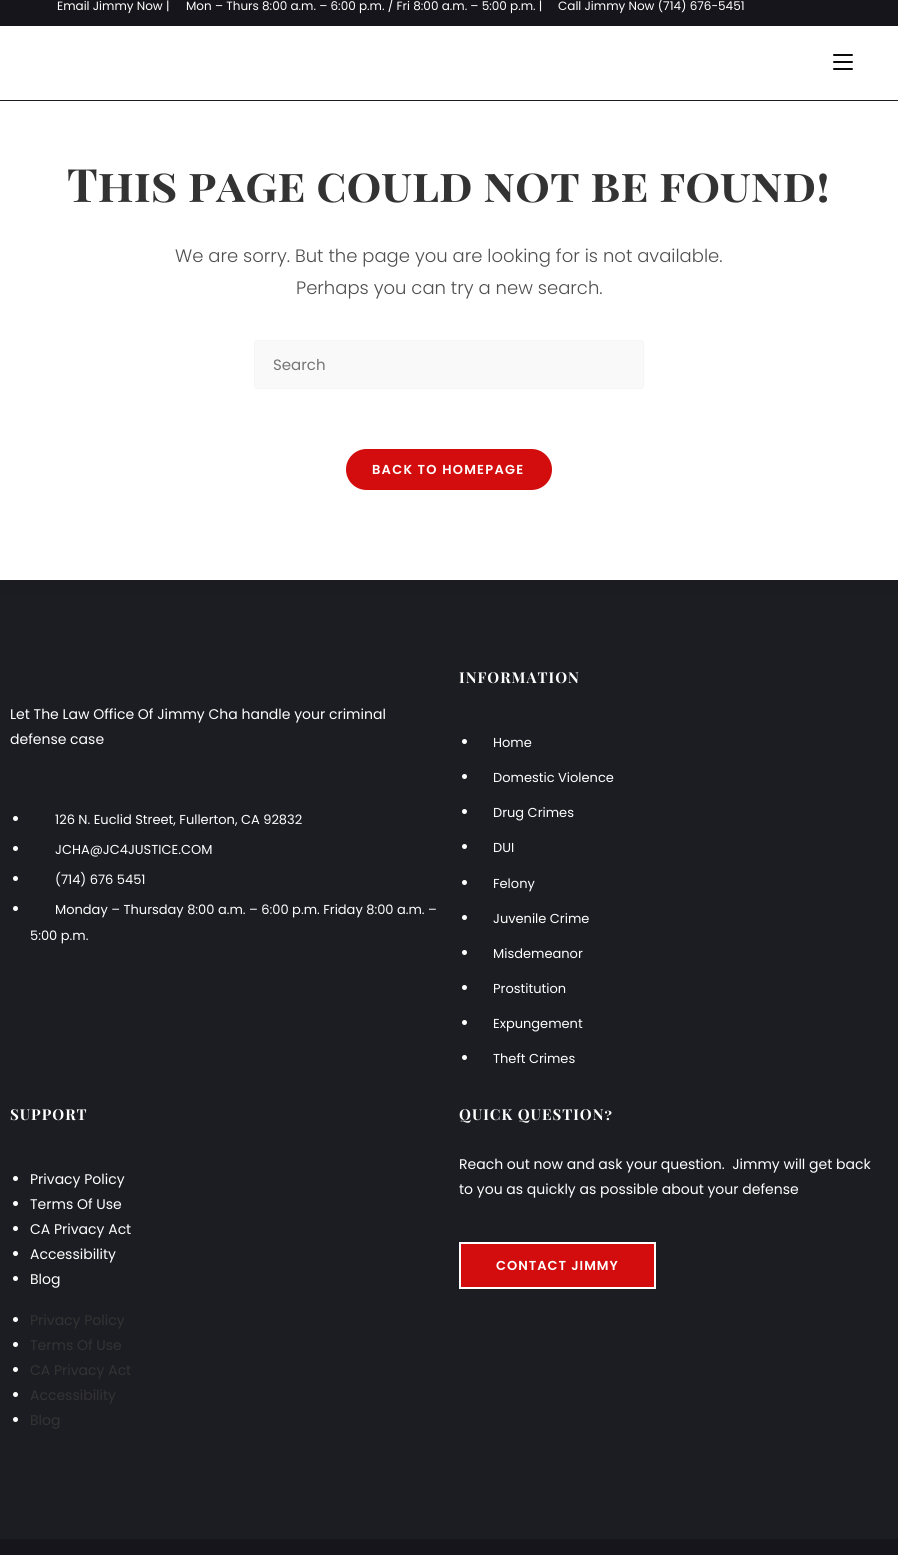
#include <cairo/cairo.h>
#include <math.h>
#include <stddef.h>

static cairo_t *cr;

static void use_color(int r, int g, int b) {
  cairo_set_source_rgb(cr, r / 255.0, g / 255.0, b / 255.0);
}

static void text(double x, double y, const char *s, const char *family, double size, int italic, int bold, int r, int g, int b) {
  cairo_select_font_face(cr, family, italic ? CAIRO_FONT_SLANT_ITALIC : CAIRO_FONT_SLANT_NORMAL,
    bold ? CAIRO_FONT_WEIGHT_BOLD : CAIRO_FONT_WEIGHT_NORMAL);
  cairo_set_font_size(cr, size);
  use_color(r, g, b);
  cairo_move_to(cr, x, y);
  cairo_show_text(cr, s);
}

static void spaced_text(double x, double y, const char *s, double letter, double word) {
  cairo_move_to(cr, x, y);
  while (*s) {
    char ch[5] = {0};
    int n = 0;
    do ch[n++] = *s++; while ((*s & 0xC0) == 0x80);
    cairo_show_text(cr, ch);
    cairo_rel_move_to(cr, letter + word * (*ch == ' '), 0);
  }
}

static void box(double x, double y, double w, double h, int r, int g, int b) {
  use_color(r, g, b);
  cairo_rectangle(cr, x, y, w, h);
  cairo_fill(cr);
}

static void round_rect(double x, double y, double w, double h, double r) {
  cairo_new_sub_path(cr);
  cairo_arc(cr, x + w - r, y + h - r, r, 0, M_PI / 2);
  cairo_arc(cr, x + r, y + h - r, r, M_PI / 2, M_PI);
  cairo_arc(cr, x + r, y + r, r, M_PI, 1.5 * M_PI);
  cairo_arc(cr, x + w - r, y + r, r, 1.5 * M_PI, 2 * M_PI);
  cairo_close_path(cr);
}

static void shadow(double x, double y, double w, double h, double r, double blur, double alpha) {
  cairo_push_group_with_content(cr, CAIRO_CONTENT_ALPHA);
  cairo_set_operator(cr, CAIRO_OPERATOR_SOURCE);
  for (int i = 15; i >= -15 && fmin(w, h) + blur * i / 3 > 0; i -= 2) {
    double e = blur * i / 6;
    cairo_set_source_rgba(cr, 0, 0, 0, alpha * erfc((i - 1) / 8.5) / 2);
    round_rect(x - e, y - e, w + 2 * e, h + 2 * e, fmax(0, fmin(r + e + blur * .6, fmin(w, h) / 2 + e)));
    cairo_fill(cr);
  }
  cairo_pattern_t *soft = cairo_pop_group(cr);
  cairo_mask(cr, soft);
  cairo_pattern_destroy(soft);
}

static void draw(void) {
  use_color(255, 255, 255);
  cairo_paint(cr);
  box(0, 0, 898, 26, 21, 21, 27);
  box(0, 580, 898, 959, 28, 28, 35);
  cairo_save(cr);
  cairo_rectangle(cr, 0, 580, 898, 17);
  cairo_clip(cr);
  use_color(0, 0, 0);
  shadow(0, 101, 898, 479, 0, 20, 0.1);
  cairo_restore(cr);
  box(0, 75, 898, 25, 255, 255, 255);
  box(0, 100, 898, 1, 28, 28, 35);
  use_color(10, 10, 10);
  round_rect(833, 68, 20, 2, 1);
  cairo_fill(cr);
  round_rect(833, 54, 20, 2, 1);
  cairo_fill(cr);
  round_rect(833, 61, 20, 2, 1);
  cairo_fill(cr);
  use_color(249, 249, 249);
  round_rect(254.5, 340.5, 389, 48, 2.5);
  cairo_fill_preserve(cr);
  use_color(245, 245, 245);
  cairo_set_line_width(cr, 1);
  cairo_stroke(cr);
  use_color(211, 13, 13);
  round_rect(346, 449, 206, 41, 20.5);
  cairo_fill(cr);
  use_color(255, 255, 255);
  cairo_arc(cr, 15.5, 818.5, 2.5, 0, 2 * M_PI);
  cairo_fill(cr);
  cairo_arc(cr, 15.5, 848.5, 2.5, 0, 2 * M_PI);
  cairo_fill(cr);
  cairo_arc(cr, 15.5, 878.5, 2.5, 0, 2 * M_PI);
  cairo_fill(cr);
  cairo_arc(cr, 15.5, 908.5, 2.5, 0, 2 * M_PI);
  cairo_fill(cr);
  cairo_arc(cr, 464.5, 741.5, 2.5, 0, 2 * M_PI);
  cairo_fill(cr);
  cairo_arc(cr, 464.5, 776.5, 2.5, 0, 2 * M_PI);
  cairo_fill(cr);
  cairo_arc(cr, 464.5, 811.5, 2.5, 0, 2 * M_PI);
  cairo_fill(cr);
  cairo_arc(cr, 464.5, 846.5, 2.5, 0, 2 * M_PI);
  cairo_fill(cr);
  cairo_arc(cr, 464.5, 882.5, 2.5, 0, 2 * M_PI);
  cairo_fill(cr);
  cairo_arc(cr, 464.5, 917.5, 2.5, 0, 2 * M_PI);
  cairo_fill(cr);
  cairo_arc(cr, 464.5, 952.5, 2.5, 0, 2 * M_PI);
  cairo_fill(cr);
  cairo_arc(cr, 464.5, 987.5, 2.5, 0, 2 * M_PI);
  cairo_fill(cr);
  cairo_arc(cr, 464.5, 1022.5, 2.5, 0, 2 * M_PI);
  cairo_fill(cr);
  cairo_arc(cr, 464.5, 1057.5, 2.5, 0, 2 * M_PI);
  cairo_fill(cr);
  cairo_arc(cr, 15.5, 1178.5, 2.5, 0, 2 * M_PI);
  cairo_fill(cr);
  cairo_arc(cr, 15.5, 1203.5, 2.5, 0, 2 * M_PI);
  cairo_fill(cr);
  cairo_arc(cr, 15.5, 1228.5, 2.5, 0, 2 * M_PI);
  cairo_fill(cr);
  cairo_arc(cr, 15.5, 1253.5, 2.5, 0, 2 * M_PI);
  cairo_fill(cr);
  cairo_arc(cr, 15.5, 1278.5, 2.5, 0, 2 * M_PI);
  cairo_fill(cr);
  cairo_arc(cr, 15.5, 1319.5, 2.5, 0, 2 * M_PI);
  cairo_fill(cr);
  cairo_arc(cr, 15.5, 1344.5, 2.5, 0, 2 * M_PI);
  cairo_fill(cr);
  cairo_arc(cr, 15.5, 1369.5, 2.5, 0, 2 * M_PI);
  cairo_fill(cr);
  cairo_arc(cr, 15.5, 1394.5, 2.5, 0, 2 * M_PI);
  cairo_fill(cr);
  cairo_arc(cr, 15.5, 1419.5, 2.5, 0, 2 * M_PI);
  cairo_fill(cr);
  use_color(211, 13, 13);
  cairo_rectangle(cr, 460, 1243, 195, 45);
  cairo_fill_preserve(cr);
  use_color(255, 255, 255);
  cairo_set_line_width(cr, 2);
  cairo_stroke(cr);
  box(0, 1539, 898, 16, 21, 21, 27);
  text(57, 10, "Email Jimmy Now |", "Poppins", 12, 0, 0, 255, 255, 255);
  text(186, 10, "Mon – Thurs 8:00 a.m. – 6:00 p.m. / Fri 8:00 a.m. – 5:00 p.m. |", "Poppins", 12, 0, 0, 255, 255, 255);
  text(558, 10, "Call Jimmy Now (714) 676-5451", "Poppins", 12, 0, 0, 255, 255, 255);
  text(67, 202, "This page could not be found!", "Playfair Display SC", 46, 0, 1, 51, 51, 51);
  text(175, 262, "We are sorry. But the page you are looking for is not available.", "Poppins Light", 18, 0, 0, 79, 79, 79);
  text(296, 294, "Perhaps you can try a new search.", "Poppins Light", 18, 0, 0, 79, 79, 79);
  text(273, 370, "Search", "Poppins", 15, 0, 0, 117, 117, 117);
  cairo_select_font_face(cr, "Poppins SemiBold", CAIRO_FONT_SLANT_NORMAL, CAIRO_FONT_WEIGHT_NORMAL);
  cairo_set_font_size(cr, 13);
  use_color(255, 255, 255);
  spaced_text(372, 474, "BACK TO HOMEPAGE", 1.25, 0);
  text(10, 719, "Let The Law Office Of Jimmy Cha handle your criminal", "Poppins", 14, 0, 0, 255, 255, 255);
  text(10, 744, "defense case", "Poppins", 14, 0, 0, 255, 255, 255);
  text(55, 824, "126 N. Euclid Street, Fullerton, CA 92832", "Poppins", 13, 0, 0, 255, 255, 255);
  text(55, 854, "JCHA@JC4JUSTICE.COM", "Poppins", 13, 0, 0, 255, 255, 255);
  text(55, 884, "(714) 676 5451", "Poppins", 13, 0, 0, 255, 255, 255);
  text(55, 914, "Monday – Thursday 8:00 a.m. – 6:00 p.m. Friday 8:00 a.m. –", "Poppins", 13, 0, 0, 255, 255, 255);
  text(30, 940, "5:00 p.m.", "Poppins", 13, 0, 0, 255, 255, 255);
  cairo_select_font_face(cr, "Playfair Display SC", CAIRO_FONT_SLANT_NORMAL, CAIRO_FONT_WEIGHT_BOLD);
  cairo_set_font_size(cr, 15);
  spaced_text(459, 683, "INFORMATION", 1, 0);
  text(493, 747, "Home", "Poppins", 13, 0, 0, 255, 255, 255);
  text(493, 782, "Domestic Violence", "Poppins", 13, 0, 0, 255, 255, 255);
  text(493, 817, "Drug Crimes", "Poppins", 13, 0, 0, 255, 255, 255);
  text(493, 852, "DUI", "Poppins", 13, 0, 0, 255, 255, 255);
  text(493, 888, "Felony", "Poppins", 13, 0, 0, 255, 255, 255);
  text(493, 923, "Juvenile Crime", "Poppins", 13, 0, 0, 255, 255, 255);
  text(493, 958, "Misdemeanor", "Poppins", 13, 0, 0, 255, 255, 255);
  text(493, 993, "Prostitution", "Poppins", 13, 0, 0, 255, 255, 255);
  text(493, 1028, "Expungement", "Poppins", 13, 0, 0, 255, 255, 255);
  text(493, 1063, "Theft Crimes", "Poppins", 13, 0, 0, 255, 255, 255);
  cairo_select_font_face(cr, "Playfair Display SC", CAIRO_FONT_SLANT_NORMAL, CAIRO_FONT_WEIGHT_BOLD);
  cairo_set_font_size(cr, 15);
  spaced_text(10, 1120, "SUPPORT", 1, 0);
  text(30, 1184, "Privacy Policy", "Poppins", 14, 0, 0, 255, 255, 255);
  text(30, 1209, "Terms Of Use", "Poppins", 14, 0, 0, 255, 255, 255);
  text(30, 1234, "CA Privacy Act", "Poppins", 14, 0, 0, 255, 255, 255);
  text(30, 1259, "Accessibility", "Poppins", 14, 0, 0, 255, 255, 255);
  text(30, 1284, "Blog", "Poppins", 14, 0, 0, 255, 255, 255);
  text(30, 1325, "Privacy Policy", "Poppins", 14, 0, 0, 51, 51, 51);
  text(30, 1350, "Terms Of Use", "Poppins", 14, 0, 0, 51, 51, 51);
  text(30, 1375, "CA Privacy Act", "Poppins", 14, 0, 0, 51, 51, 51);
  text(30, 1400, "Accessibility", "Poppins", 14, 0, 0, 51, 51, 51);
  text(30, 1425, "Blog", "Poppins", 14, 0, 0, 51, 51, 51);
  cairo_select_font_face(cr, "Playfair Display SC", CAIRO_FONT_SLANT_NORMAL, CAIRO_FONT_WEIGHT_BOLD);
  cairo_set_font_size(cr, 15);
  use_color(255, 255, 255);
  spaced_text(459, 1120, "QUICK QUESTION?", 1, 0);
  text(459, 1169, "Reach out now and ask your question.  Jimmy will get back", "Poppins", 14, 0, 0, 255, 255, 255);
  text(459, 1194, "to you as quickly as possible about your defense", "Poppins", 14, 0, 0, 255, 255, 255);
  cairo_select_font_face(cr, "Poppins SemiBold", CAIRO_FONT_SLANT_NORMAL, CAIRO_FONT_WEIGHT_NORMAL);
  cairo_set_font_size(cr, 13);
  spaced_text(496, 1270, "CONTACT JIMMY", 1, 0);
}

int main(void) {
  cairo_surface_t *surface = cairo_image_surface_create(CAIRO_FORMAT_RGB24, 898, 1555);
  cr = cairo_create(surface);
  cairo_font_options_t *options = cairo_font_options_create();
  cairo_font_options_set_hint_metrics(options, CAIRO_HINT_METRICS_OFF);
  cairo_font_options_set_hint_style(options, CAIRO_HINT_STYLE_NONE);
  cairo_set_font_options(cr, options);
  cairo_set_miter_limit(cr, 4);
  draw();
  cairo_surface_write_to_png(surface, "out.png");
  cairo_font_options_destroy(options);
  cairo_destroy(cr);
  cairo_surface_destroy(surface);
  return 0;
}
